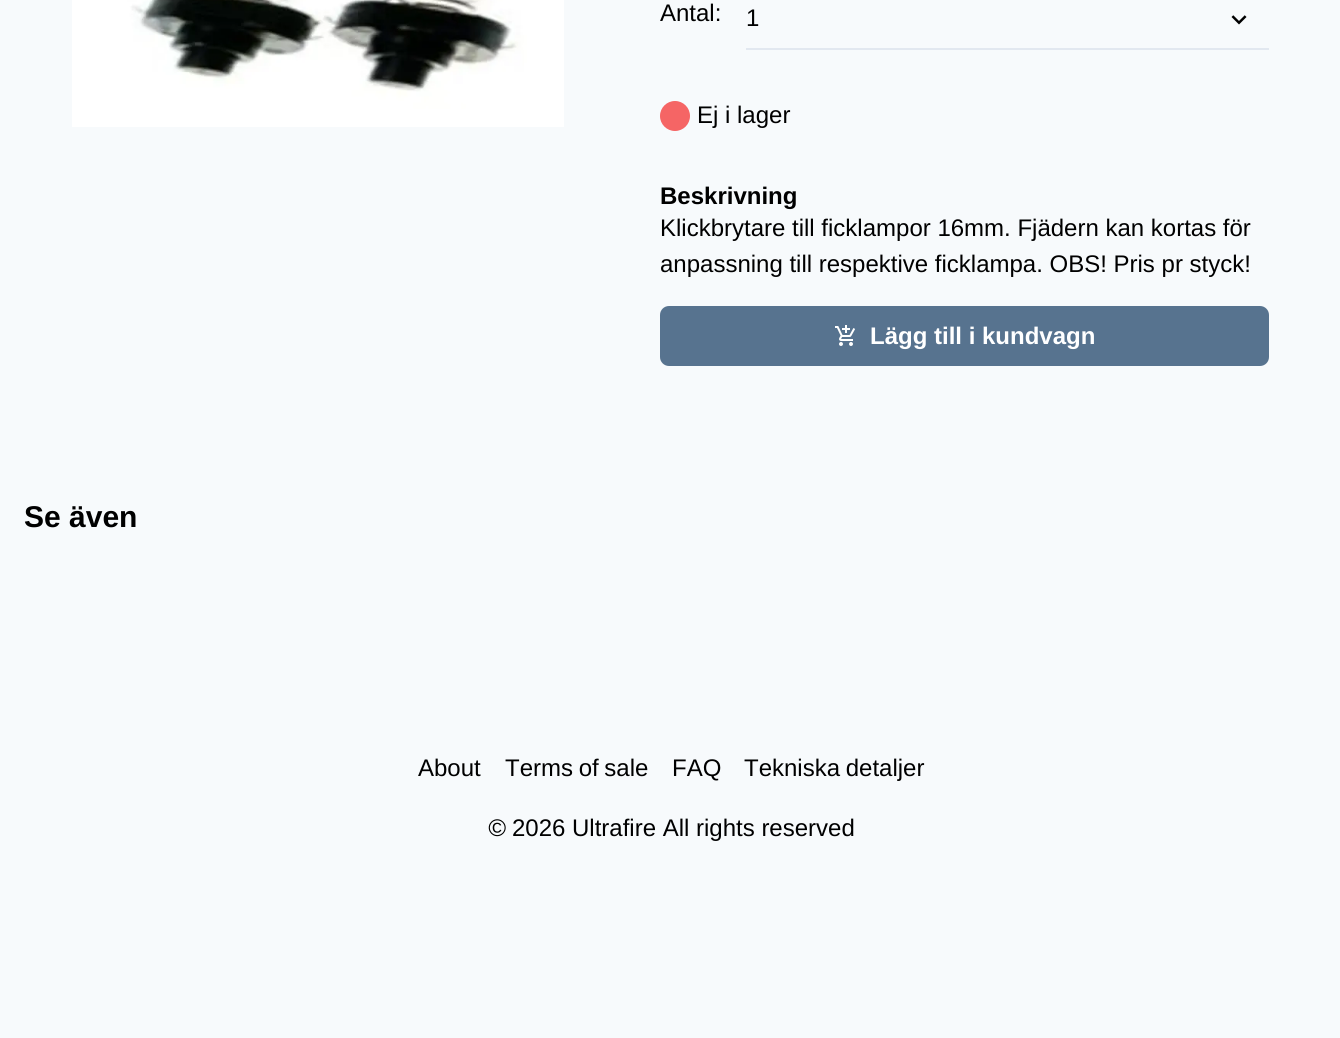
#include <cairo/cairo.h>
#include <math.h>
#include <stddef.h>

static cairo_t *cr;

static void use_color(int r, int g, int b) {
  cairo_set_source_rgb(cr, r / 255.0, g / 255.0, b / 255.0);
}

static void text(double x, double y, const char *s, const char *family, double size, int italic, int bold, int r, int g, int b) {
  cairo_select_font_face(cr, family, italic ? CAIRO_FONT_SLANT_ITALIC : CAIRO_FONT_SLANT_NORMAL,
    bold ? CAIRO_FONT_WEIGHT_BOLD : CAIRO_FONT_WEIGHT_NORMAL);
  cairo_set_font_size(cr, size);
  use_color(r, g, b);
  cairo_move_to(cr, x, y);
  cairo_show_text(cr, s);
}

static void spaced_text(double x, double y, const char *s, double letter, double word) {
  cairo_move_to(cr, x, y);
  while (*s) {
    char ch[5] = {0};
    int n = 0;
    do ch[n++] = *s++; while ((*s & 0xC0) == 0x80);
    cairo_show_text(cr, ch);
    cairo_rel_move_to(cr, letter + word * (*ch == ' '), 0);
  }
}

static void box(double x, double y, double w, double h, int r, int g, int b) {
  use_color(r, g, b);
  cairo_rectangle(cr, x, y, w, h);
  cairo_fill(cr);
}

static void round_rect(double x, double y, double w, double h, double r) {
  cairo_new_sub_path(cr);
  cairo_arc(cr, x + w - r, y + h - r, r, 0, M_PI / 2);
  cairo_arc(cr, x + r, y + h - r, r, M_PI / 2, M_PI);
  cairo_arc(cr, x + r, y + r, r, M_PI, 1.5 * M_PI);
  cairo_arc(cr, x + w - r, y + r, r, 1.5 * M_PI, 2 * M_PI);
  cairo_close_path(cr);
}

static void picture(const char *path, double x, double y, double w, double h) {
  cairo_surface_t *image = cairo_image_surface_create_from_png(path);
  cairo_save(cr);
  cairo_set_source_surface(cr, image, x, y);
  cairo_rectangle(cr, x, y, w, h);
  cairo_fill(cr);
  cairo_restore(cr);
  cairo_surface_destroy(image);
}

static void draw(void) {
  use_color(247, 250, 252);
  cairo_paint(cr);
  picture("img_01.png", 72, 0, 492, 127);
  box(746, 48, 523, 2, 226, 232, 240);
  picture("img_02.png", 1231, 15, 16, 10);
  use_color(245, 101, 101);
  cairo_arc(cr, 675, 116, 15, 0, 2 * M_PI);
  cairo_fill(cr);
  use_color(87, 115, 143);
  round_rect(660, 306, 609, 60, 9);
  cairo_fill(cr);
  picture("img_03.png", 835, 325, 20, 21);
  text(660, 21, "Antal:", "Liberation Sans", 24, 0, 0, 0, 0, 0);
  text(746, 26, "1", "Liberation Sans", 24, 0, 0, 0, 0, 0);
  text(697, 123, "Ej i lager", "Liberation Sans", 24, 0, 0, 0, 0, 0);
  text(660, 204, "Beskrivning", "Liberation Sans", 24, 0, 1, 0, 0, 0);
  text(660, 236, "Klickbrytare till ficklampor 16mm. Fjädern kan kortas för", "Liberation Sans", 24, 0, 0, 0, 0, 0);
  text(660, 272, "anpassning till respektive ficklampa. OBS! Pris pr styck!", "Liberation Sans", 24, 0, 0, 0, 0, 0);
  text(870, 344, "Lägg till i kundvagn", "Liberation Sans", 24, 0, 1, 255, 255, 255);
  text(24, 527, "Se även", "Liberation Sans", 30, 0, 1, 0, 0, 0);
  text(418, 776, "About", "Liberation Sans", 24, 0, 0, 0, 0, 0);
  spaced_text(505, 776, "Terms of sale", 0, -1);
  text(672, 776, "FAQ", "Liberation Sans", 24, 0, 0, 0, 0, 0);
  spaced_text(744, 776, "Tekniska detaljer", 0, -1);
  text(488, 836, "©", "Liberation Sans", 24, 1, 0, 0, 0, 0);
  text(512, 836, "2026", "Liberation Sans", 24, 0, 0, 0, 0, 0);
  text(572, 836, "Ultrafire All rights reserved", "Liberation Sans", 24, 0, 0, 0, 0, 0);
}

int main(void) {
  cairo_surface_t *surface = cairo_image_surface_create(CAIRO_FORMAT_RGB24, 1340, 1038);
  cr = cairo_create(surface);
  cairo_font_options_t *options = cairo_font_options_create();
  cairo_font_options_set_hint_metrics(options, CAIRO_HINT_METRICS_OFF);
  cairo_font_options_set_hint_style(options, CAIRO_HINT_STYLE_NONE);
  cairo_set_font_options(cr, options);
  cairo_set_miter_limit(cr, 4);
  draw();
  cairo_surface_write_to_png(surface, "out.png");
  cairo_font_options_destroy(options);
  cairo_destroy(cr);
  cairo_surface_destroy(surface);
  return 0;
}
